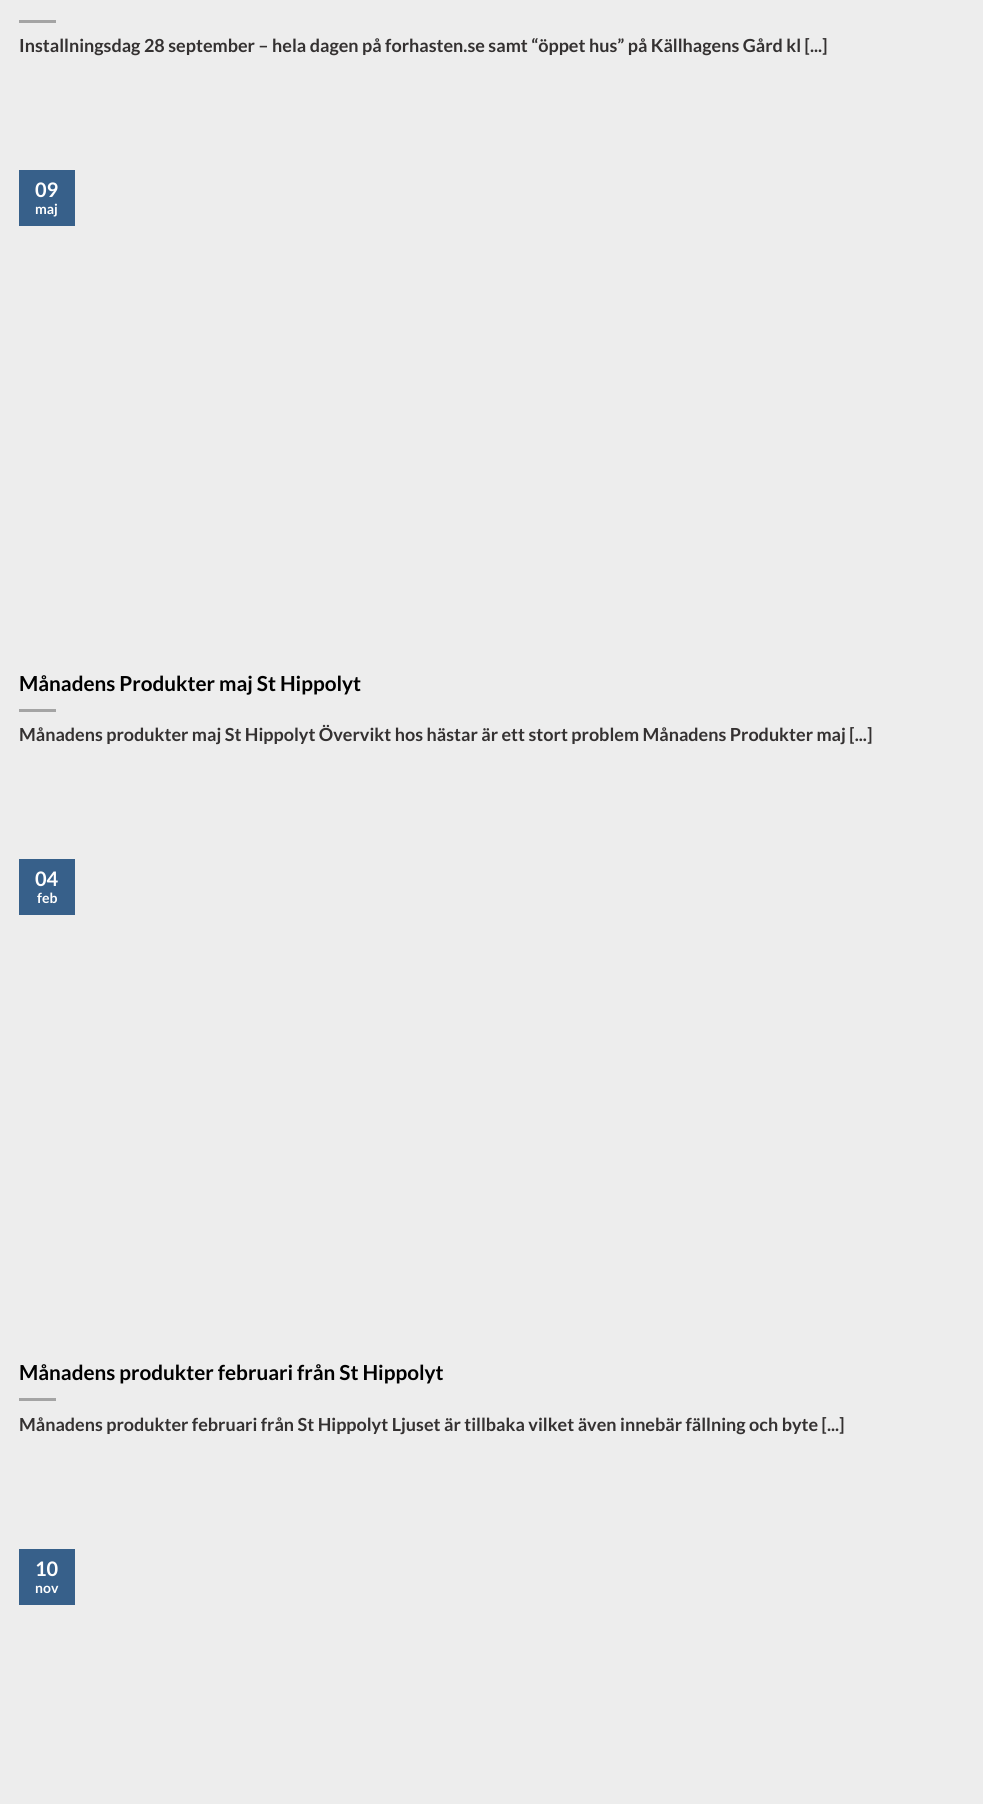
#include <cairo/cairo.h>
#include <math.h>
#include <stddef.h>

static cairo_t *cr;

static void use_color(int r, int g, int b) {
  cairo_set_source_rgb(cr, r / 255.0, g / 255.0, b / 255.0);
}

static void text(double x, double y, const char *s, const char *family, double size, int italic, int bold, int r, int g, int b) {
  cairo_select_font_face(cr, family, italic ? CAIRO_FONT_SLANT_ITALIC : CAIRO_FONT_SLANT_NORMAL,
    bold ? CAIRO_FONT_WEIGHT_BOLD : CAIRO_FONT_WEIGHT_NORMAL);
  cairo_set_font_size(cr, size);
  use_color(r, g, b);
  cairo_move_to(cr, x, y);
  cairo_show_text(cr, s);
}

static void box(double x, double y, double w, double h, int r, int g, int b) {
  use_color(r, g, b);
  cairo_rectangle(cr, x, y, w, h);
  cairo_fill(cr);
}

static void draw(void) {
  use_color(237, 237, 237);
  cairo_paint(cr);
  box(19, 20, 37, 3, 164, 164, 164);
  box(19, 170, 56, 56, 55, 96, 138);
  box(19, 709, 37, 3, 164, 164, 164);
  box(19, 859, 56, 56, 55, 96, 138);
  box(19, 1398, 37, 3, 164, 164, 164);
  box(19, 1549, 56, 56, 55, 96, 138);
  text(19, 52, "Installningsdag 28 september – hela dagen på forhasten.se samt “öppet hus” på Källhagens Gård kl [...]", "Lato", 18, 0, 1, 52, 49, 49);
  text(35, 197, "09", "Lato", 20, 0, 1, 255, 255, 255);
  text(35, 214, "maj", "Lato", 14, 0, 1, 255, 255, 255);
  text(19, 691, "Månadens Produkter maj St Hippolyt", "Lato", 20.7, 0, 1, 0, 0, 0);
  text(19, 741, "Månadens produkter maj St Hippolyt Övervikt hos hästar är ett stort problem Månadens Produkter maj [...]", "Lato", 18, 0, 1, 52, 49, 49);
  text(35, 886, "04", "Lato", 20, 0, 1, 255, 255, 255);
  text(37, 903, "feb", "Lato", 14, 0, 1, 255, 255, 255);
  text(19, 1380, "Månadens produkter februari från St Hippolyt", "Lato", 20.7, 0, 1, 0, 0, 0);
  text(19, 1431, "Månadens produkter februari från St Hippolyt Ljuset är tillbaka vilket även innebär fällning och byte [...]", "Lato", 18, 0, 1, 52, 49, 49);
  text(35, 1576, "10", "Lato", 20, 0, 1, 255, 255, 255);
  text(35, 1593, "nov", "Lato", 14, 0, 1, 255, 255, 255);
}

int main(void) {
  cairo_surface_t *surface = cairo_image_surface_create(CAIRO_FORMAT_RGB24, 983, 1804);
  cr = cairo_create(surface);
  cairo_font_options_t *options = cairo_font_options_create();
  cairo_font_options_set_hint_metrics(options, CAIRO_HINT_METRICS_OFF);
  cairo_font_options_set_hint_style(options, CAIRO_HINT_STYLE_NONE);
  cairo_set_font_options(cr, options);
  cairo_set_miter_limit(cr, 4);
  draw();
  cairo_surface_write_to_png(surface, "out.png");
  cairo_font_options_destroy(options);
  cairo_destroy(cr);
  cairo_surface_destroy(surface);
  return 0;
}
